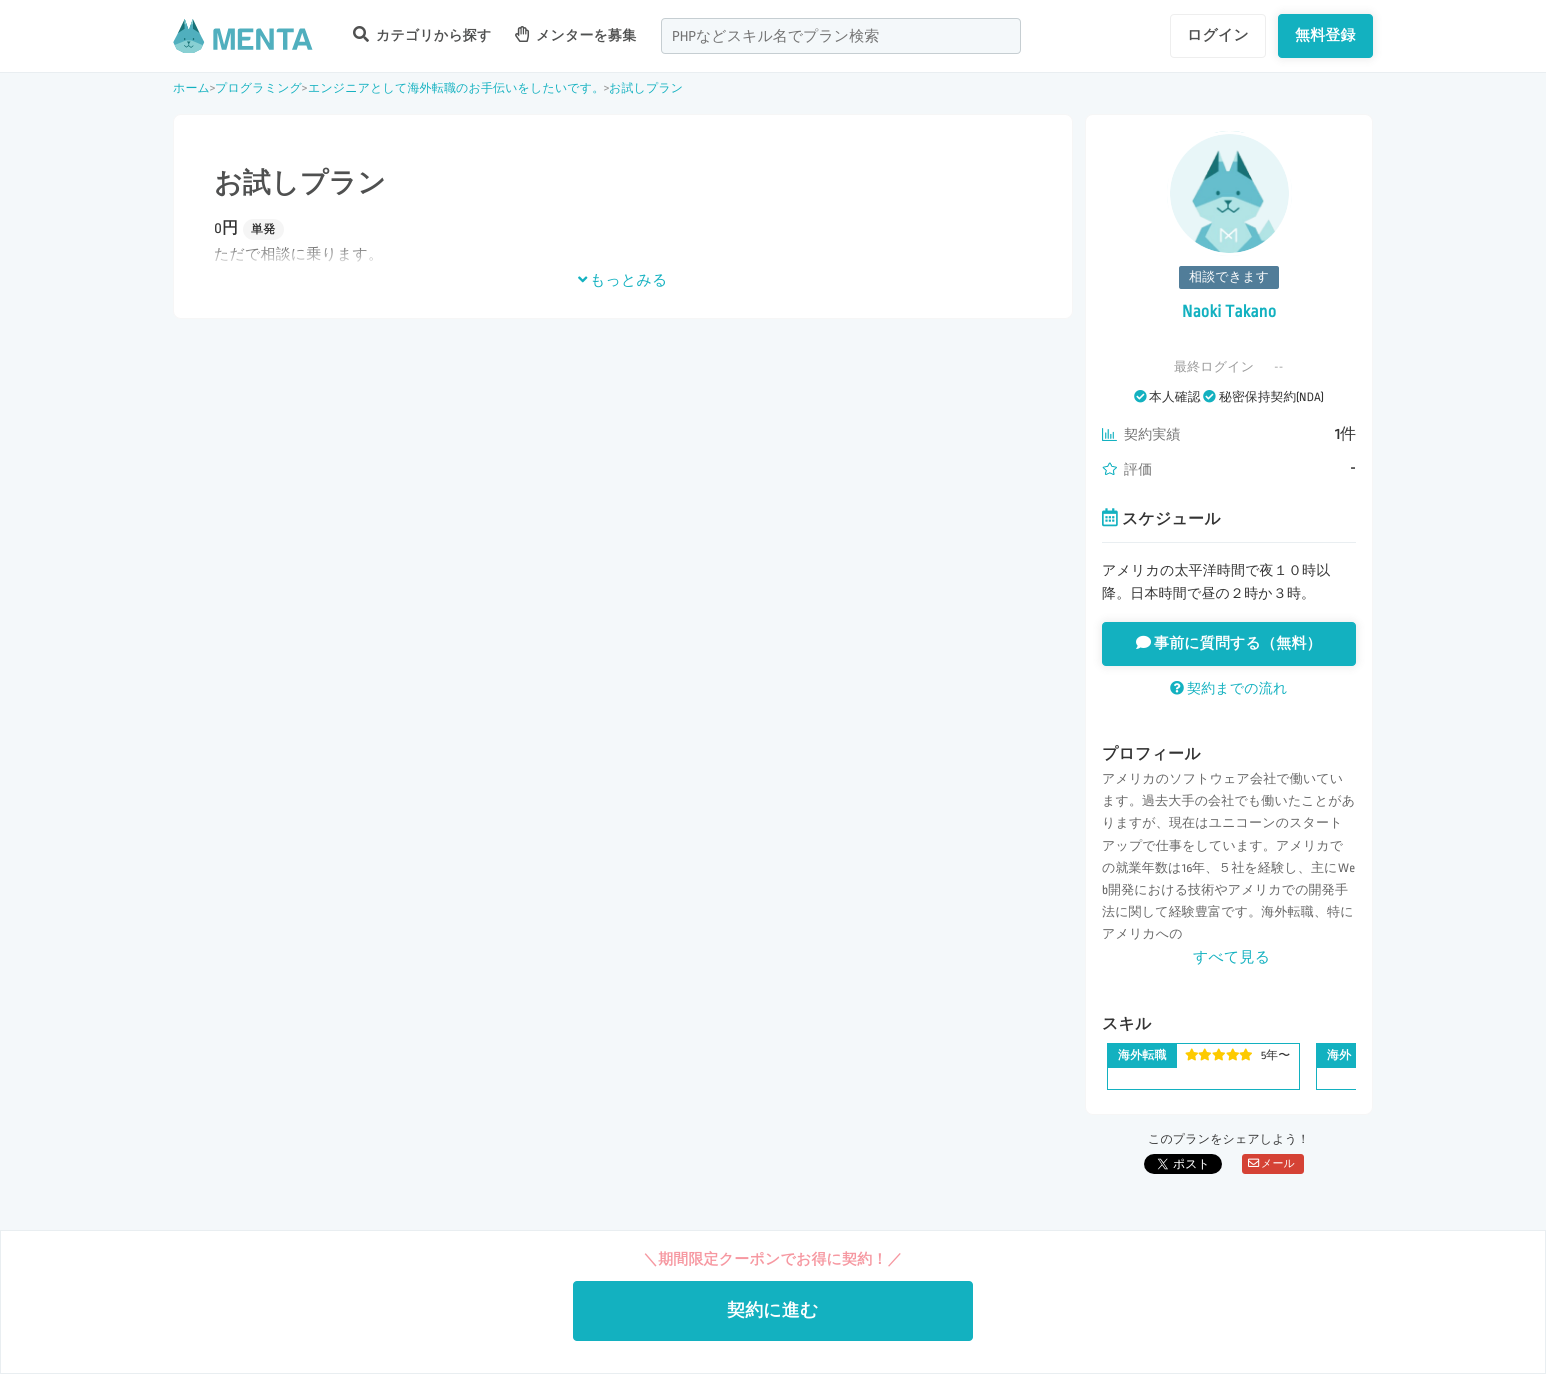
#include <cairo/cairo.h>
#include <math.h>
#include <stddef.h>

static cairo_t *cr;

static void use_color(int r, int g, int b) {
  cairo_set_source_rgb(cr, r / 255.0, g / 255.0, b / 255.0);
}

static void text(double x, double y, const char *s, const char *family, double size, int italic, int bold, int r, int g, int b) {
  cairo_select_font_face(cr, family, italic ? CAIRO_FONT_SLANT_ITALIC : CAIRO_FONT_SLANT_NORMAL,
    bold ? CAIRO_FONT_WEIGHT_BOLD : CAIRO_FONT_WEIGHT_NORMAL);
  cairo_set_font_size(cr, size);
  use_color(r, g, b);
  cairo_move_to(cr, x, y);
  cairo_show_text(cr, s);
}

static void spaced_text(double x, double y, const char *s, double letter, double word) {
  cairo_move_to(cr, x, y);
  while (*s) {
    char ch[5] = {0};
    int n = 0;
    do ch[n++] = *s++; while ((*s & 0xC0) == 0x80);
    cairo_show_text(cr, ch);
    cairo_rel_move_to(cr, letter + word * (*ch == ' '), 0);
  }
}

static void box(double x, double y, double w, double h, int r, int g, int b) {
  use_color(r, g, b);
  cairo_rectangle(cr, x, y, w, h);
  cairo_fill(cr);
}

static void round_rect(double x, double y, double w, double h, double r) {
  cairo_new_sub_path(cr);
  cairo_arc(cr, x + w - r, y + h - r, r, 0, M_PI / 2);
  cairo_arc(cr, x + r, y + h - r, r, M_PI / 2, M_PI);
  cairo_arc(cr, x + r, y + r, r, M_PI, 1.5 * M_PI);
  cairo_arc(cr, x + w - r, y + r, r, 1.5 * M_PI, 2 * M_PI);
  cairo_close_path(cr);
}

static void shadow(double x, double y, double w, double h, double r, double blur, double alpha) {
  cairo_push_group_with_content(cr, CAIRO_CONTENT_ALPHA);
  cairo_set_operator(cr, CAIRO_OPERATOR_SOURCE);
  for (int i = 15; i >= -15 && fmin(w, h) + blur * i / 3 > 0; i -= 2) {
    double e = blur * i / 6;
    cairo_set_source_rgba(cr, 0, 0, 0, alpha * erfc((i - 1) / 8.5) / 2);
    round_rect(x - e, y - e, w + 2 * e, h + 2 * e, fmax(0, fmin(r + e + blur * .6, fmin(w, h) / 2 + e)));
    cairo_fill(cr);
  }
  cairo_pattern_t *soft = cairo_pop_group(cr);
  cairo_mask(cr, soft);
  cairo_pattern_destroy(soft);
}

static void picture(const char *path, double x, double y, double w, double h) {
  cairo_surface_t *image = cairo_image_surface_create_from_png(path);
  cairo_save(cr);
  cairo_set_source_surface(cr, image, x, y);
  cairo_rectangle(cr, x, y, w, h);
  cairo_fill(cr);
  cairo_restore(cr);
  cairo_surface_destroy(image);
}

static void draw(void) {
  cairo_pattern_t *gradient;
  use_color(244, 248, 250);
  cairo_paint(cr);
  box(0, 0, 1546, 72, 255, 255, 255);
  box(0, 72, 1546, 1, 233, 238, 241);
  picture("img_01.png", 173, 19, 140, 34);
  picture("img_02.png", 353, 26, 16, 16);
  picture("img_03.png", 515, 26, 15, 16);
  use_color(244, 248, 250);
  round_rect(661.5, 18.5, 359, 35, 3.5);
  cairo_fill_preserve(cr);
  use_color(198, 206, 210);
  cairo_set_line_width(cr, 1);
  cairo_stroke(cr);
  round_rect(1170.5, 14.5, 95, 43, 3.5);
  use_color(238, 238, 238);
  cairo_stroke(cr);
  use_color(0, 0, 0);
  shadow(1278, 14, 95, 44, 4, 5, 0.1);
  use_color(19, 177, 192);
  round_rect(1278.5, 14.5, 94, 43, 3.5);
  cairo_fill_preserve(cr);
  cairo_stroke(cr);
  use_color(255, 255, 255);
  round_rect(173.5, 114.5, 899, 204, 7.5);
  cairo_fill_preserve(cr);
  use_color(246, 246, 246);
  cairo_stroke(cr);
  use_color(245, 245, 245);
  round_rect(243, 219, 41, 21, 10.5);
  cairo_fill(cr);
  picture("img_04.png", 578, 276, 10, 7);
  use_color(255, 255, 255);
  round_rect(1085.5, 114.5, 287, 1000, 7.5);
  cairo_fill_preserve(cr);
  use_color(246, 246, 246);
  cairo_stroke(cr);
  picture("img_05.png", 1167, 131, 125, 125);
  cairo_arc(cr, 1229.5, 193.5, 61, 0, 2 * M_PI);
  use_color(255, 255, 255);
  cairo_set_line_width(cr, 3);
  cairo_stroke(cr);
  use_color(81, 125, 153);
  round_rect(1179, 266, 100, 23, 2);
  cairo_fill(cr);
  picture("img_06.png", 1134, 390, 13, 13);
  picture("img_06.png", 1203, 390, 13, 13);
  picture("img_07.png", 1102, 428, 15, 13);
  picture("img_08.png", 1102, 462, 15, 13);
  box(1102, 542, 254, 1, 233, 238, 241);
  picture("img_09.png", 1102, 508, 16, 19);
  use_color(0, 0, 0);
  shadow(1102, 622, 254, 44, 4, 5, 0.1);
  use_color(19, 177, 192);
  round_rect(1102.5, 622.5, 253, 43, 3.5);
  cairo_fill_preserve(cr);
  cairo_set_line_width(cr, 1);
  cairo_stroke(cr);
  picture("img_10.png", 1136, 635, 15, 14);
  picture("img_11.png", 1170, 681, 14, 14);
  cairo_rectangle(cr, 1107.5, 1043.5, 192, 46);
  cairo_stroke(cr);
  box(1108, 1044, 69, 24, 19, 177, 192);
  picture("img_12.png", 1185, 1048, 13, 13);
  picture("img_12.png", 1198, 1048, 13, 13);
  picture("img_12.png", 1212, 1048, 13, 13);
  picture("img_12.png", 1226, 1048, 13, 13);
  picture("img_12.png", 1239, 1048, 13, 13);
  cairo_save(cr);
  cairo_rectangle(cr, 1102, 1038, 254, 60);
  cairo_clip(cr);
  cairo_new_path(cr);
  cairo_move_to(cr, 1316, 1043);
  cairo_line_to(cr, 1316, 1090);
  cairo_line_to(cr, 1372, 1090);
  cairo_line_to(cr, 1372, 1089);
  cairo_line_to(cr, 1317, 1089);
  cairo_line_to(cr, 1317, 1044);
  cairo_line_to(cr, 1372, 1044);
  cairo_line_to(cr, 1372, 1043);
  cairo_close_path(cr);
  cairo_fill(cr);
  cairo_restore(cr);
  box(1317, 1044, 39, 24, 19, 177, 192);
  picture("img_13.png", 1144, 1154, 78, 20);
  use_color(213, 66, 53);
  round_rect(1242, 1154, 62, 20, 3);
  cairo_fill(cr);
  picture("img_14.png", 1248, 1158, 12, 9);
  use_color(255, 255, 255);
  cairo_rectangle(cr, 0.5, 1230.5, 1545, 143);
  cairo_fill_preserve(cr);
  use_color(233, 238, 241);
  cairo_stroke(cr);
  use_color(19, 177, 192);
  round_rect(573, 1281, 400, 60, 4);
  cairo_fill(cr);
  cairo_select_font_face(cr, "WenQuanYi Zen Hei", CAIRO_FONT_SLANT_NORMAL, CAIRO_FONT_WEIGHT_BOLD);
  cairo_set_font_size(cr, 14);
  use_color(79, 80, 80);
  spaced_text(376, 40, "カテゴリから探す", 0.15, 0);
  spaced_text(536, 40, "メンターを募集", 0.15, 0);
  text(672, 41, "PHP", "Ropa Sans", 15, 0, 0, 115, 115, 115);
  text(696, 41, "などスキル名でプラン検索", "WenQuanYi Zen Hei Medium", 15, 0, 0, 115, 115, 115);
  cairo_select_font_face(cr, "WenQuanYi Zen Hei", CAIRO_FONT_SLANT_NORMAL, CAIRO_FONT_WEIGHT_BOLD);
  use_color(79, 80, 80);
  spaced_text(1187, 40, "ログイン", 0.15, 0);
  use_color(255, 255, 255);
  spaced_text(1295, 40, "無料登録", 0.15, 0);
  cairo_select_font_face(cr, "WenQuanYi Zen Hei Medium", CAIRO_FONT_SLANT_NORMAL, CAIRO_FONT_WEIGHT_NORMAL);
  cairo_set_font_size(cr, 12);
  use_color(19, 177, 192);
  spaced_text(173, 92, "ホーム", 0.15, 0);
  cairo_select_font_face(cr, "Ropa Sans", CAIRO_FONT_SLANT_NORMAL, CAIRO_FONT_WEIGHT_NORMAL);
  cairo_set_font_size(cr, 13);
  use_color(153, 153, 153);
  spaced_text(210, 92, ">", 0.15, 0);
  cairo_select_font_face(cr, "WenQuanYi Zen Hei Medium", CAIRO_FONT_SLANT_NORMAL, CAIRO_FONT_WEIGHT_NORMAL);
  cairo_set_font_size(cr, 12);
  use_color(19, 177, 192);
  spaced_text(215, 92, "プログラミング", 0.15, 0);
  cairo_select_font_face(cr, "Ropa Sans", CAIRO_FONT_SLANT_NORMAL, CAIRO_FONT_WEIGHT_NORMAL);
  cairo_set_font_size(cr, 13);
  use_color(153, 153, 153);
  spaced_text(302, 92, ">", 0.15, 0);
  cairo_select_font_face(cr, "WenQuanYi Zen Hei Medium", CAIRO_FONT_SLANT_NORMAL, CAIRO_FONT_WEIGHT_NORMAL);
  cairo_set_font_size(cr, 12);
  use_color(19, 177, 192);
  spaced_text(308, 92, "エンジニアとして海外転職のお手伝いをしたいです。", 0.15, 0);
  cairo_select_font_face(cr, "Ropa Sans", CAIRO_FONT_SLANT_NORMAL, CAIRO_FONT_WEIGHT_NORMAL);
  cairo_set_font_size(cr, 13);
  use_color(153, 153, 153);
  spaced_text(604, 92, ">", 0.15, 0);
  cairo_select_font_face(cr, "WenQuanYi Zen Hei Medium", CAIRO_FONT_SLANT_NORMAL, CAIRO_FONT_WEIGHT_NORMAL);
  cairo_set_font_size(cr, 12);
  use_color(19, 177, 192);
  spaced_text(609, 92, "お試しプラン", 0.15, 0);
  cairo_select_font_face(cr, "WenQuanYi Zen Hei", CAIRO_FONT_SLANT_NORMAL, CAIRO_FONT_WEIGHT_BOLD);
  cairo_set_font_size(cr, 28);
  use_color(79, 80, 80);
  spaced_text(214, 192, "お試しプラン", 0.15, 0);
  cairo_select_font_face(cr, "Ropa Sans", CAIRO_FONT_SLANT_NORMAL, CAIRO_FONT_WEIGHT_NORMAL);
  cairo_set_font_size(cr, 16);
  use_color(51, 51, 51);
  spaced_text(214, 233, "0", 0.15, 0);
  cairo_select_font_face(cr, "WenQuanYi Zen Hei", CAIRO_FONT_SLANT_NORMAL, CAIRO_FONT_WEIGHT_BOLD);
  spaced_text(222, 233, "円", 0.15, 0);
  cairo_set_font_size(cr, 12);
  spaced_text(251, 233, "単発", 0.15, 0);
  cairo_select_font_face(cr, "WenQuanYi Zen Hei Medium", CAIRO_FONT_SLANT_NORMAL, CAIRO_FONT_WEIGHT_NORMAL);
  cairo_set_font_size(cr, 15);
  spaced_text(214, 259, "ただで相談に乗ります。", 0.15, 0);
  gradient = cairo_pattern_create_linear(623, 238, 623, 268);
  cairo_pattern_add_color_stop_rgba(gradient, 0, 1, 1, 1, 0);
  cairo_pattern_add_color_stop_rgba(gradient, 1, 1, 1, 1, 1);
  cairo_set_source(cr, gradient);
  cairo_pattern_destroy(gradient);
  cairo_rectangle(cr, 215, 246, 158, 16);
  cairo_fill(cr);
  use_color(19, 177, 192);
  spaced_text(590, 285, "もっとみる", 0.15, 0);
  cairo_set_font_size(cr, 13);
  use_color(255, 255, 255);
  spaced_text(1189, 281, "相談できます", 0.15, 0);
  cairo_select_font_face(cr, "Ropa Sans", CAIRO_FONT_SLANT_NORMAL, CAIRO_FONT_WEIGHT_BOLD);
  cairo_set_font_size(cr, 18);
  use_color(19, 177, 192);
  spaced_text(1182, 317, "Naoki Takano", 0.15, 0);
  cairo_select_font_face(cr, "WenQuanYi Zen Hei Medium", CAIRO_FONT_SLANT_NORMAL, CAIRO_FONT_WEIGHT_NORMAL);
  cairo_set_font_size(cr, 13);
  use_color(153, 153, 153);
  spaced_text(1174, 371, "最終ログイン", 0.15, 0);
  cairo_select_font_face(cr, "Ropa Sans", CAIRO_FONT_SLANT_NORMAL, CAIRO_FONT_WEIGHT_NORMAL);
  spaced_text(1274, 371, "--", 0.15, 0);
  cairo_select_font_face(cr, "WenQuanYi Zen Hei Medium", CAIRO_FONT_SLANT_NORMAL, CAIRO_FONT_WEIGHT_NORMAL);
  cairo_set_font_size(cr, 12.75);
  use_color(51, 51, 51);
  spaced_text(1149, 401, "本人確認", 0.15, 0);
  spaced_text(1219, 401, "秘密保持契約", 0.15, 0);
  cairo_select_font_face(cr, "Ropa Sans", CAIRO_FONT_SLANT_NORMAL, CAIRO_FONT_WEIGHT_NORMAL);
  spaced_text(1296, 401, "(NDA)", 0.15, 0);
  cairo_select_font_face(cr, "WenQuanYi Zen Hei Medium", CAIRO_FONT_SLANT_NORMAL, CAIRO_FONT_WEIGHT_NORMAL);
  cairo_set_font_size(cr, 14);
  use_color(115, 115, 115);
  spaced_text(1124, 439, "契約実績", 0.15, 0);
  cairo_select_font_face(cr, "Ropa Sans", CAIRO_FONT_SLANT_NORMAL, CAIRO_FONT_WEIGHT_BOLD);
  cairo_set_font_size(cr, 16);
  use_color(51, 51, 51);
  spaced_text(1335, 439, "1", 0.15, 0);
  cairo_select_font_face(cr, "WenQuanYi Zen Hei Medium", CAIRO_FONT_SLANT_NORMAL, CAIRO_FONT_WEIGHT_NORMAL);
  spaced_text(1340, 439, "件", 0.15, 0);
  cairo_set_font_size(cr, 14);
  use_color(115, 115, 115);
  spaced_text(1124, 474, "評価", 0.15, 0);
  cairo_select_font_face(cr, "Ropa Sans", CAIRO_FONT_SLANT_NORMAL, CAIRO_FONT_WEIGHT_BOLD);
  cairo_set_font_size(cr, 16);
  use_color(51, 51, 51);
  spaced_text(1350, 473, "-", 0.15, 0);
  cairo_select_font_face(cr, "WenQuanYi Zen Hei", CAIRO_FONT_SLANT_NORMAL, CAIRO_FONT_WEIGHT_BOLD);
  spaced_text(1122, 524, "スケジュール", 0.15, 0);
  cairo_select_font_face(cr, "WenQuanYi Zen Hei Medium", CAIRO_FONT_SLANT_NORMAL, CAIRO_FONT_WEIGHT_NORMAL);
  cairo_set_font_size(cr, 14);
  spaced_text(1102, 575, "アメリカの太平洋時間で夜１０時以", 0.15, 0);
  spaced_text(1102, 598, "降。日本時間で昼の２時か３時。", 0.15, 0);
  cairo_select_font_face(cr, "WenQuanYi Zen Hei", CAIRO_FONT_SLANT_NORMAL, CAIRO_FONT_WEIGHT_BOLD);
  cairo_set_font_size(cr, 15);
  use_color(255, 255, 255);
  spaced_text(1154, 648, "事前に質問する（無料）", 0.15, 0);
  cairo_select_font_face(cr, "WenQuanYi Zen Hei Medium", CAIRO_FONT_SLANT_NORMAL, CAIRO_FONT_WEIGHT_NORMAL);
  cairo_set_font_size(cr, 14);
  use_color(19, 177, 192);
  spaced_text(1187, 693, "契約までの流れ", 0.15, 0);
  cairo_select_font_face(cr, "WenQuanYi Zen Hei", CAIRO_FONT_SLANT_NORMAL, CAIRO_FONT_WEIGHT_BOLD);
  cairo_set_font_size(cr, 16);
  use_color(51, 51, 51);
  spaced_text(1102, 759, "プロフィール", 0.15, 0);
  cairo_select_font_face(cr, "WenQuanYi Zen Hei Medium", CAIRO_FONT_SLANT_NORMAL, CAIRO_FONT_WEIGHT_NORMAL);
  cairo_set_font_size(cr, 13);
  use_color(102, 102, 102);
  spaced_text(1102, 783, "アメリカのソフトウェア会社で働いてい", 0.15, 0);
  spaced_text(1102, 805, "ます。過去大手の会社でも働いたことがあ", 0.15, 0);
  spaced_text(1102, 827, "りますが、現在はユニコーンのスタート", 0.15, 0);
  spaced_text(1102, 850, "アップで仕事をしています。アメリカで", 0.15, 0);
  spaced_text(1102, 872, "の就業年数は", 0.15, 0);
  cairo_select_font_face(cr, "Ropa Sans", CAIRO_FONT_SLANT_NORMAL, CAIRO_FONT_WEIGHT_NORMAL);
  spaced_text(1182, 872, "16", 0.15, 0);
  cairo_select_font_face(cr, "WenQuanYi Zen Hei Medium", CAIRO_FONT_SLANT_NORMAL, CAIRO_FONT_WEIGHT_NORMAL);
  spaced_text(1192, 872, "年、５社を経験し、主に", 0.15, 0);
  cairo_select_font_face(cr, "Ropa Sans", CAIRO_FONT_SLANT_NORMAL, CAIRO_FONT_WEIGHT_NORMAL);
  spaced_text(1338, 872, "We", 0.15, 0);
  spaced_text(1102, 894, "b", 0.15, 0);
  cairo_select_font_face(cr, "WenQuanYi Zen Hei Medium", CAIRO_FONT_SLANT_NORMAL, CAIRO_FONT_WEIGHT_NORMAL);
  spaced_text(1108, 894, "開発における技術やアメリカでの開発手", 0.15, 0);
  spaced_text(1102, 916, "法に関して経験豊富です。海外転職、特に", 0.15, 0);
  spaced_text(1102, 938, "アメリカへの", 0.15, 0);
  cairo_set_font_size(cr, 15);
  use_color(19, 177, 192);
  spaced_text(1193, 962, "すべて見る", 0.15, 0);
  cairo_select_font_face(cr, "WenQuanYi Zen Hei", CAIRO_FONT_SLANT_NORMAL, CAIRO_FONT_WEIGHT_BOLD);
  cairo_set_font_size(cr, 16);
  use_color(51, 51, 51);
  spaced_text(1102, 1029, "スキル", 0.15, 0);
  cairo_set_font_size(cr, 12);
  use_color(255, 255, 255);
  spaced_text(1118, 1059, "海外転職", 0.15, 0);
  cairo_select_font_face(cr, "Ropa Sans", CAIRO_FONT_SLANT_NORMAL, CAIRO_FONT_WEIGHT_NORMAL);
  use_color(51, 51, 51);
  spaced_text(1261, 1059, "5", 0.15, 0);
  cairo_select_font_face(cr, "WenQuanYi Zen Hei Medium", CAIRO_FONT_SLANT_NORMAL, CAIRO_FONT_WEIGHT_NORMAL);
  spaced_text(1266, 1059, "年〜", 0.15, 0);
  cairo_select_font_face(cr, "WenQuanYi Zen Hei", CAIRO_FONT_SLANT_NORMAL, CAIRO_FONT_WEIGHT_BOLD);
  use_color(255, 255, 255);
  spaced_text(1327, 1059, "海外", 0.15, 0);
  cairo_select_font_face(cr, "WenQuanYi Zen Hei Medium", CAIRO_FONT_SLANT_NORMAL, CAIRO_FONT_WEIGHT_NORMAL);
  use_color(51, 51, 51);
  spaced_text(1148, 1143, "このプランをシェアしよう！", 0.15, 0);
  cairo_set_font_size(cr, 11);
  use_color(255, 255, 255);
  spaced_text(1261, 1167, "メール", 0.15, 0);
  cairo_select_font_face(cr, "WenQuanYi Zen Hei", CAIRO_FONT_SLANT_NORMAL, CAIRO_FONT_WEIGHT_BOLD);
  cairo_set_font_size(cr, 15);
  use_color(246, 152, 161);
  spaced_text(643, 1264, "＼期間限定クーポンでお得に契約！／", 0.15, 0);
  cairo_set_font_size(cr, 18);
  use_color(255, 255, 255);
  spaced_text(727, 1316, "契約に進む", 0.15, 0);
}

int main(void) {
  cairo_surface_t *surface = cairo_image_surface_create(CAIRO_FORMAT_RGB24, 1546, 1374);
  cr = cairo_create(surface);
  cairo_font_options_t *options = cairo_font_options_create();
  cairo_font_options_set_hint_metrics(options, CAIRO_HINT_METRICS_OFF);
  cairo_font_options_set_hint_style(options, CAIRO_HINT_STYLE_NONE);
  cairo_set_font_options(cr, options);
  cairo_set_miter_limit(cr, 4);
  draw();
  cairo_surface_write_to_png(surface, "out.png");
  cairo_font_options_destroy(options);
  cairo_destroy(cr);
  cairo_surface_destroy(surface);
  return 0;
}
